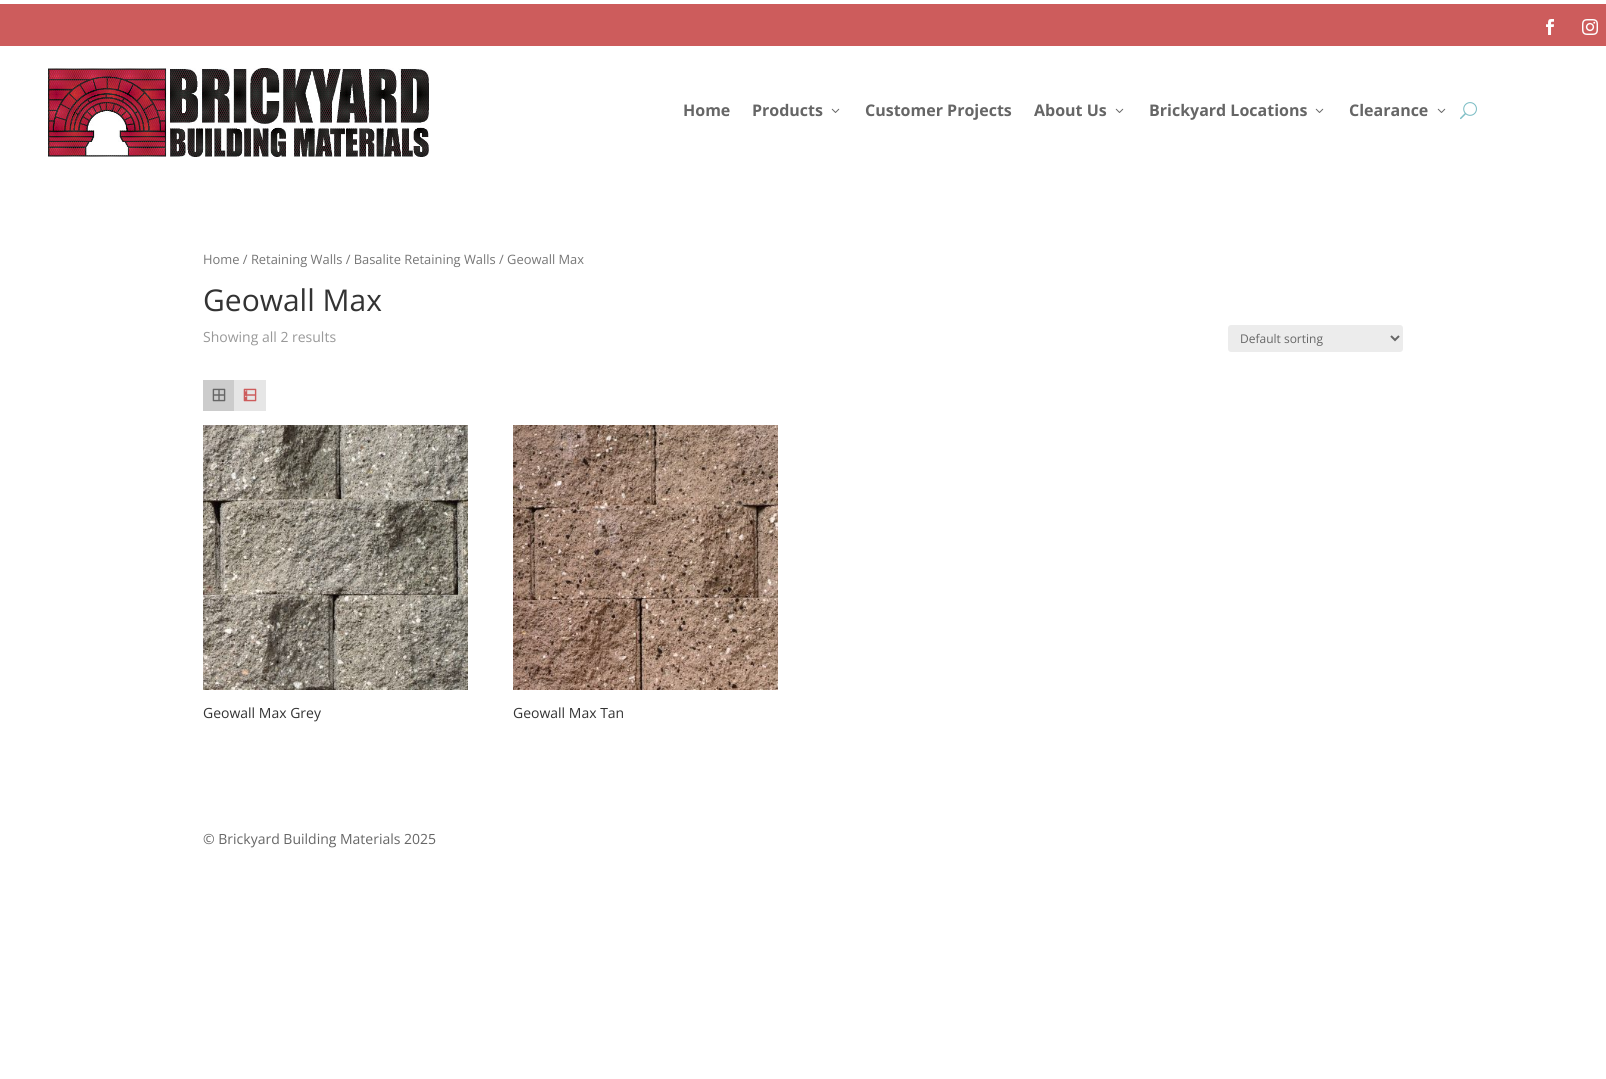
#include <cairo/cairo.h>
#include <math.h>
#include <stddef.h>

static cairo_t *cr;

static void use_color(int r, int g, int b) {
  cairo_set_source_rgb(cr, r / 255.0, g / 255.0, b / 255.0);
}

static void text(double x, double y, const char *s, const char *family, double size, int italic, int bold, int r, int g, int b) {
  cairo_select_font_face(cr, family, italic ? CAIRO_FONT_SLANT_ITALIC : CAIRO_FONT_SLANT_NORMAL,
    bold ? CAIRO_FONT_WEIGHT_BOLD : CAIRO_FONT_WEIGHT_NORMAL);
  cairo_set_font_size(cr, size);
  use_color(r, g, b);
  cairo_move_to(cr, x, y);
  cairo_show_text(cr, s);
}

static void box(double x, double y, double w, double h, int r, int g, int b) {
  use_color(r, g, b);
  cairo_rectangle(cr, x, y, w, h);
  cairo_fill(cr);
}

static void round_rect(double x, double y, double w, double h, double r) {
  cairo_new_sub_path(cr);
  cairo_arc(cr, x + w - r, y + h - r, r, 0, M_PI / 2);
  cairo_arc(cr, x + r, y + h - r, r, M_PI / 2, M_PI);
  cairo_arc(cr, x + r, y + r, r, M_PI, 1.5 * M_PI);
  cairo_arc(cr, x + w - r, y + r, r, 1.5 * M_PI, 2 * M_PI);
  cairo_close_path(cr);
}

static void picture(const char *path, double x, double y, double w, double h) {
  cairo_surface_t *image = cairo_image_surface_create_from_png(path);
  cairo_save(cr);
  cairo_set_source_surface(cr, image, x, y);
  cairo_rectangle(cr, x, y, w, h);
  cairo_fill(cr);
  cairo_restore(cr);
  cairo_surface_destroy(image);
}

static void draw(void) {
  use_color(255, 255, 255);
  cairo_paint(cr);
  box(0, 4, 1606, 42, 205, 92, 92);
  picture("img_01.png", 1546, 19, 8, 16);
  picture("img_02.png", 1582, 19, 16, 16);
  picture("img_03.png", 48, 68, 381, 89);
  picture("img_04.png", 831, 108, 9, 5);
  picture("img_04.png", 1115, 108, 9, 5);
  picture("img_04.png", 1315, 108, 9, 5);
  picture("img_04.png", 1437, 108, 9, 5);
  picture("img_05.png", 1460, 102, 17, 18);
  use_color(236, 236, 236);
  round_rect(1228, 325, 175, 27, 3);
  cairo_fill(cr);
  cairo_new_path(cr);
  cairo_move_to(cr, 1391, 336);
  cairo_line_to(cr, 1395, 340);
  cairo_line_to(cr, 1399, 336);
  use_color(102, 102, 102);
  cairo_stroke(cr);
  box(203, 380, 31, 31, 204, 204, 204);
  picture("img_06.png", 212, 388, 14, 14);
  box(234, 380, 32, 31, 230, 230, 230);
  picture("img_07.png", 243, 388, 14, 14);
  picture("img_08.png", 203, 425, 265, 265);
  picture("img_09.png", 513, 425, 265, 265);
  text(683, 116, "Home", "Open Sans", 16, 0, 1, 102, 102, 102);
  text(752, 116, "Products", "Open Sans", 16, 0, 1, 102, 102, 102);
  text(865, 116, "Customer Projects", "Open Sans", 16, 0, 1, 102, 102, 102);
  text(1034, 116, "About Us", "Open Sans", 16, 0, 1, 102, 102, 102);
  text(1149, 116, "Brickyard Locations", "Open Sans", 16, 0, 1, 102, 102, 102);
  text(1349, 116, "Clearance", "Open Sans", 16, 0, 1, 102, 102, 102);
  text(203, 264, "Home / Retaining Walls / Basalite Retaining Walls / Geowall Max", "Open Sans", 12.9, 0, 0, 118, 118, 118);
  text(203, 311, "Geowall Max", "Open Sans", 30, 0, 0, 51, 51, 51);
  text(203, 342, "Showing all 2 results", "Open Sans", 14, 0, 0, 153, 153, 153);
  text(1240, 343, "Default sorting", "Open Sans", 12, 0, 0, 102, 102, 102);
  text(203, 718, "Geowall Max Grey", "Open Sans", 14, 0, 0, 51, 51, 51);
  text(513, 718, "Geowall Max Tan", "Open Sans", 14, 0, 0, 51, 51, 51);
  text(203, 844, "© Brickyard Building Materials 2025", "Open Sans", 14, 0, 0, 102, 102, 102);
}

int main(void) {
  cairo_surface_t *surface = cairo_image_surface_create(CAIRO_FORMAT_RGB24, 1606, 1079);
  cr = cairo_create(surface);
  cairo_font_options_t *options = cairo_font_options_create();
  cairo_font_options_set_hint_metrics(options, CAIRO_HINT_METRICS_OFF);
  cairo_font_options_set_hint_style(options, CAIRO_HINT_STYLE_NONE);
  cairo_set_font_options(cr, options);
  cairo_set_miter_limit(cr, 4);
  draw();
  cairo_surface_write_to_png(surface, "out.png");
  cairo_font_options_destroy(options);
  cairo_destroy(cr);
  cairo_surface_destroy(surface);
  return 0;
}
